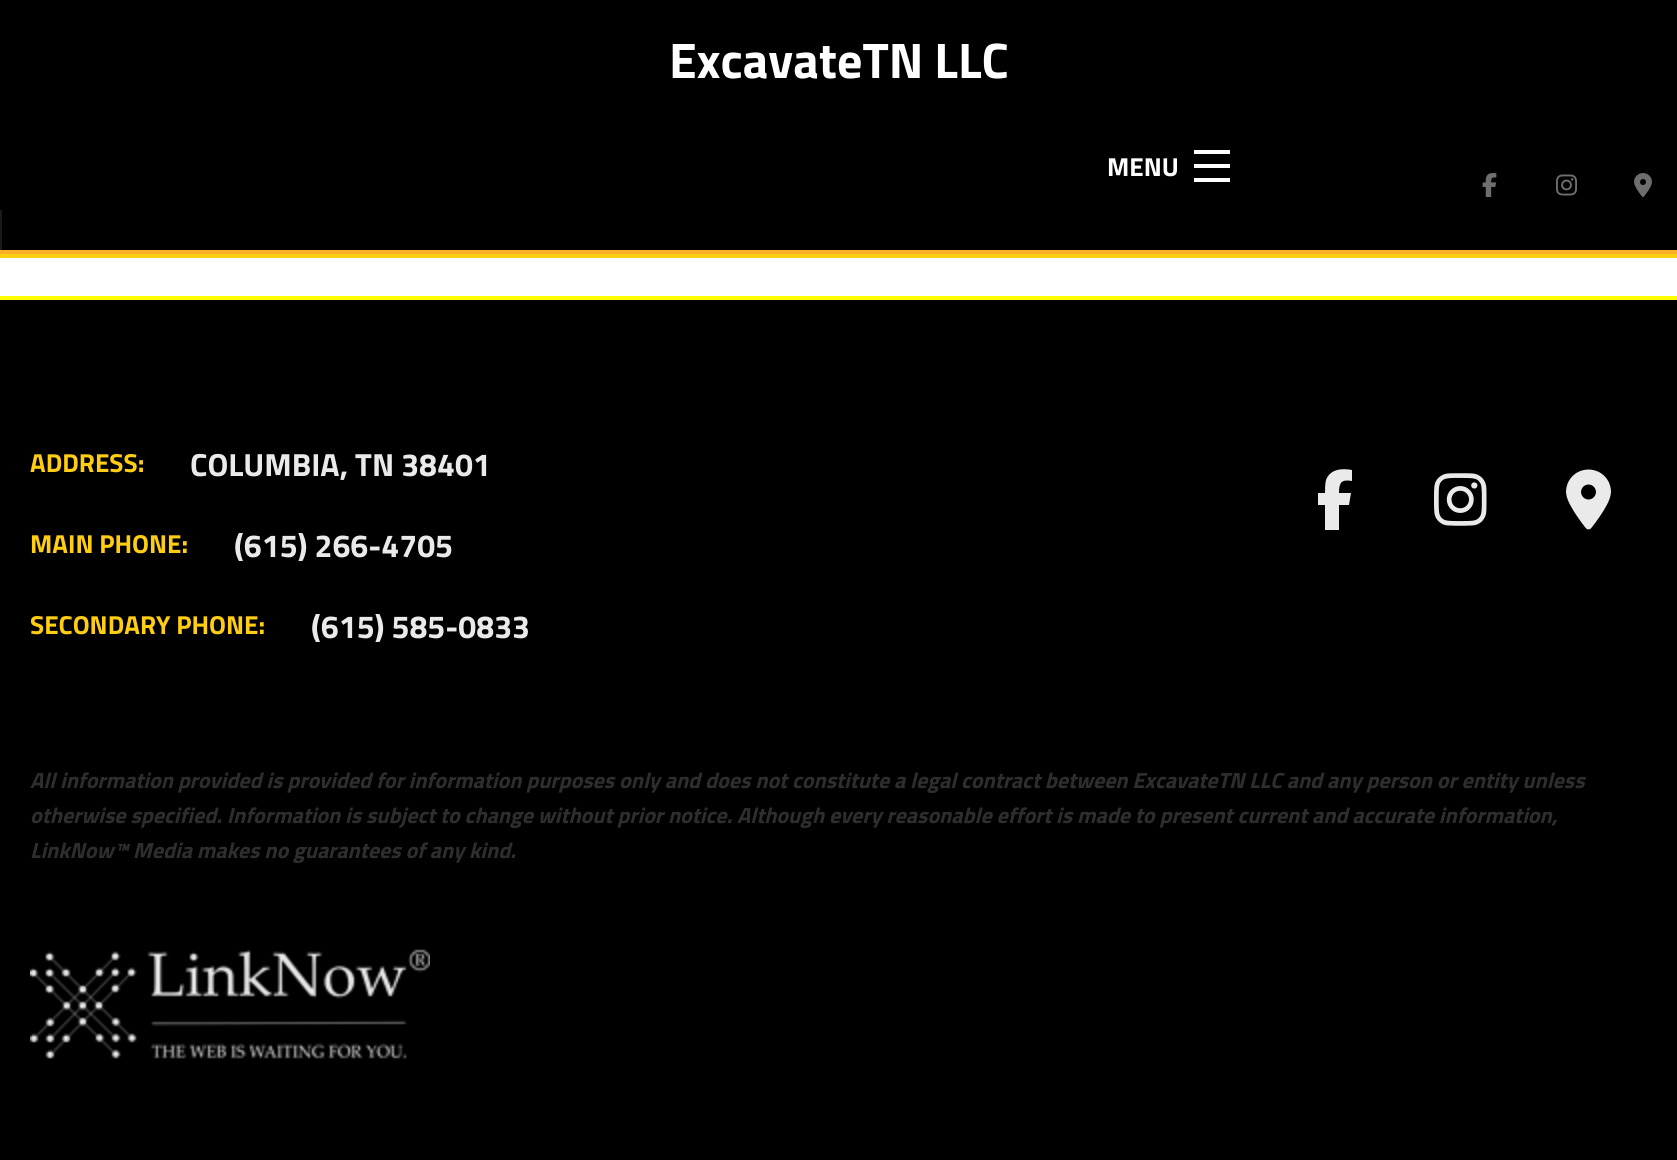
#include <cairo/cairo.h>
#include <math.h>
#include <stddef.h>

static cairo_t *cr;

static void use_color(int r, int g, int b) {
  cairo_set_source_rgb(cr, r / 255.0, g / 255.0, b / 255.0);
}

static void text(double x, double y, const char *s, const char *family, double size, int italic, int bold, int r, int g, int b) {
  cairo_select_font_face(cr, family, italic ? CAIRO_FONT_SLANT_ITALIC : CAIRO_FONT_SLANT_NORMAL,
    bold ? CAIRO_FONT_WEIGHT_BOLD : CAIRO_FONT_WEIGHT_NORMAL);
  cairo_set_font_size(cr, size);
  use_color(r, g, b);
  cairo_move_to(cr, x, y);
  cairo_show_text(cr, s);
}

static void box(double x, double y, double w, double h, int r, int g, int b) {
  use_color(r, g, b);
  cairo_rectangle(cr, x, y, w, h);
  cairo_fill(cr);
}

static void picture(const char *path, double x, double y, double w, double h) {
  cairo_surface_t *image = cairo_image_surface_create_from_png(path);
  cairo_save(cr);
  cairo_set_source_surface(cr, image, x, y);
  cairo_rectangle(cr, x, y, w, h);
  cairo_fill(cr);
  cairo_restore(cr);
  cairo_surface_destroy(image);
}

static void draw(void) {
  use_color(255, 255, 255);
  cairo_paint(cr);
  box(0, 0, 1677, 250, 0, 0, 0);
  box(0, 250, 1677, 4, 251, 175, 40);
  box(1194, 178, 36, 4, 255, 255, 255);
  box(1194, 164, 36, 4, 255, 255, 255);
  box(1194, 150, 36, 4, 255, 255, 255);
  box(0, 210, 2, 40, 26, 26, 26);
  picture("img_01.png", 1482, 173, 15, 24);
  picture("img_02.png", 1556, 174, 21, 22);
  picture("img_03.png", 1634, 173, 18, 24);
  box(0, 254, 1677, 4, 255, 205, 17);
  box(0, 300, 1677, 860, 0, 0, 0);
  box(0, 296, 1677, 4, 255, 255, 0);
  use_color(234, 234, 234);
  cairo_new_path(cr);
  cairo_move_to(cr, 1325, 505);
  cairo_line_to(cr, 1325, 530);
  cairo_line_to(cr, 1325, 505);
  cairo_line_to(cr, 1325, 530);
  cairo_line_to(cr, 1339, 530);
  cairo_line_to(cr, 1339, 505);
  cairo_line_to(cr, 1349, 505);
  cairo_line_to(cr, 1351, 493);
  cairo_line_to(cr, 1339, 493);
  cairo_curve_to(cr, 1339, 483, 1341, 479, 1352, 481);
  cairo_line_to(cr, 1352, 470);
  cairo_curve_to(cr, 1342, 468, 1330, 469, 1326, 480);
  cairo_curve_to(cr, 1325, 484, 1325, 489, 1325, 493);
  cairo_line_to(cr, 1318, 493);
  cairo_line_to(cr, 1318, 505);
  cairo_close_path(cr);
  cairo_fill(cr);
  picture("img_04.png", 1434, 473, 53, 53);
  picture("img_05.png", 1566, 469, 45, 61);
  picture("img_06.png", 30, 949, 400, 110);
  text(669, 78, "ExcavateTN LLC", "Titillium Web", 50, 0, 1, 255, 255, 255);
  text(1107, 176, "MENU", "Titillium Web", 26, 0, 1, 255, 255, 255);
  text(30, 472, "ADDRESS:", "Titillium Web", 26, 0, 1, 255, 205, 17);
  text(190, 476, "COLUMBIA, TN 38401", "Titillium Web", 32, 0, 1, 234, 234, 234);
  text(30, 553, "MAIN PHONE:", "Titillium Web", 26, 0, 1, 255, 205, 17);
  text(234, 557, "(615) 266-4705", "Titillium Web", 32, 0, 1, 234, 234, 234);
  text(30, 634, "SECONDARY PHONE:", "Titillium Web", 26, 0, 1, 255, 205, 17);
  text(311, 638, "(615) 585-0833", "Titillium Web", 32, 0, 1, 234, 234, 234);
  text(30, 788, "All information provided is provided for information purposes only and does not constitute a legal contract between ExcavateTN LLC and any person or entity unless", "Titillium Web", 22, 1, 1, 46, 46, 46);
  text(30, 823, "otherwise specified. Information is subject to change without prior notice. Although every reasonable effort is made to present current and accurate information,", "Titillium Web", 22, 1, 1, 46, 46, 46);
  text(30, 858, "LinkNow™ Media makes no guarantees of any kind.", "Titillium Web", 22, 1, 1, 46, 46, 46);
}

int main(void) {
  cairo_surface_t *surface = cairo_image_surface_create(CAIRO_FORMAT_RGB24, 1677, 1160);
  cr = cairo_create(surface);
  cairo_font_options_t *options = cairo_font_options_create();
  cairo_font_options_set_hint_metrics(options, CAIRO_HINT_METRICS_OFF);
  cairo_font_options_set_hint_style(options, CAIRO_HINT_STYLE_NONE);
  cairo_set_font_options(cr, options);
  cairo_set_miter_limit(cr, 4);
  draw();
  cairo_surface_write_to_png(surface, "out.png");
  cairo_font_options_destroy(options);
  cairo_destroy(cr);
  cairo_surface_destroy(surface);
  return 0;
}
